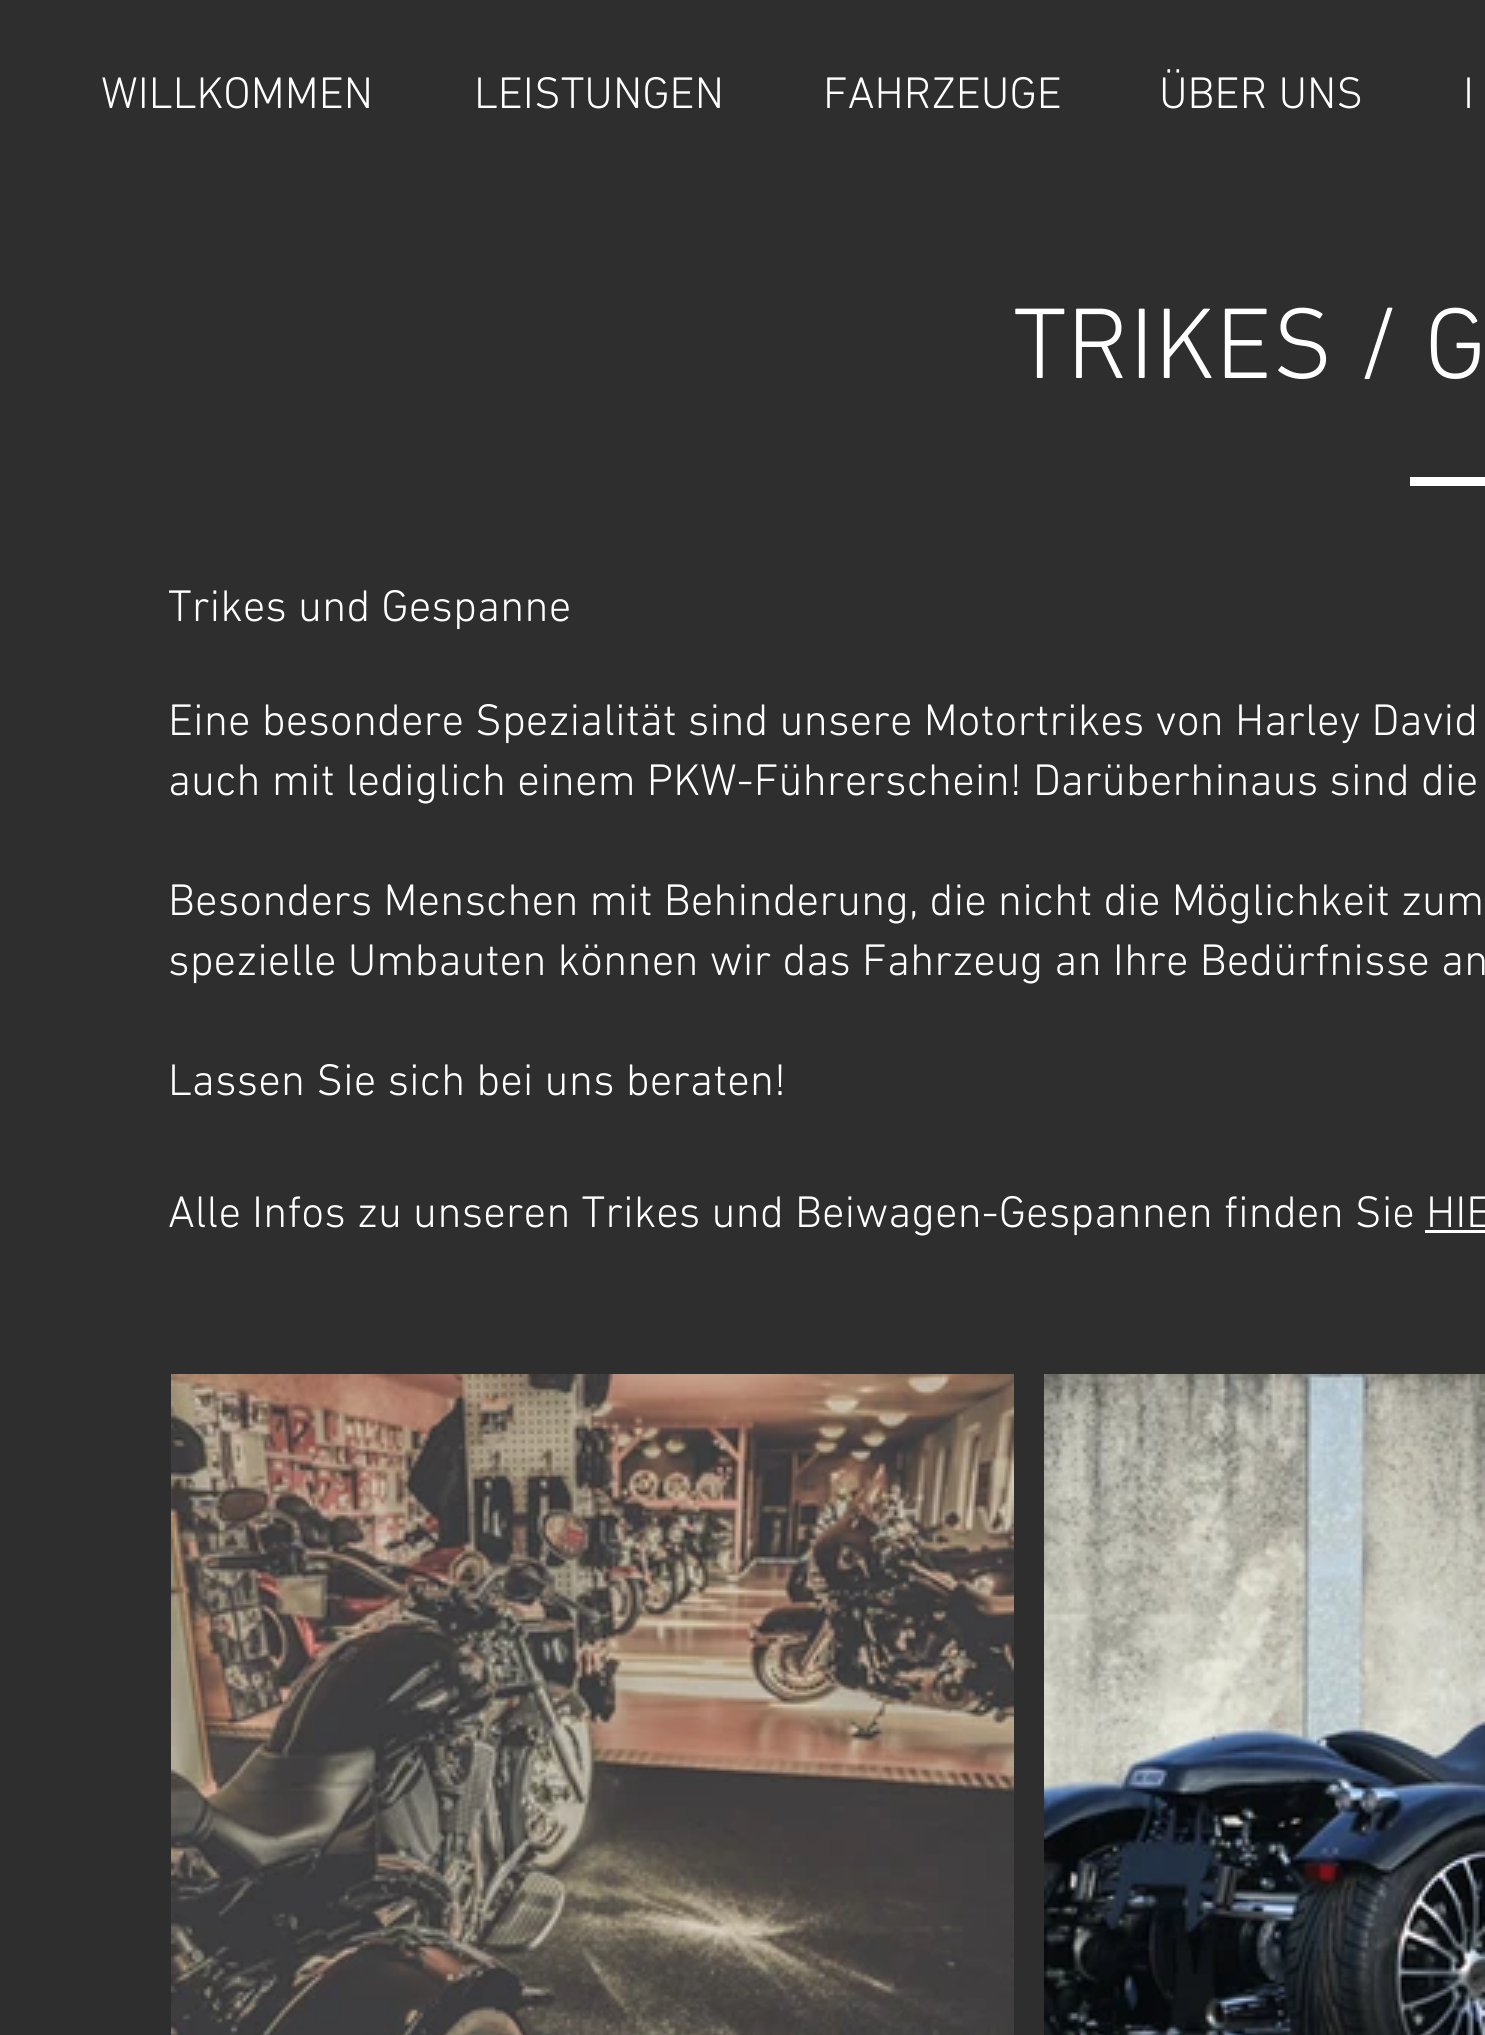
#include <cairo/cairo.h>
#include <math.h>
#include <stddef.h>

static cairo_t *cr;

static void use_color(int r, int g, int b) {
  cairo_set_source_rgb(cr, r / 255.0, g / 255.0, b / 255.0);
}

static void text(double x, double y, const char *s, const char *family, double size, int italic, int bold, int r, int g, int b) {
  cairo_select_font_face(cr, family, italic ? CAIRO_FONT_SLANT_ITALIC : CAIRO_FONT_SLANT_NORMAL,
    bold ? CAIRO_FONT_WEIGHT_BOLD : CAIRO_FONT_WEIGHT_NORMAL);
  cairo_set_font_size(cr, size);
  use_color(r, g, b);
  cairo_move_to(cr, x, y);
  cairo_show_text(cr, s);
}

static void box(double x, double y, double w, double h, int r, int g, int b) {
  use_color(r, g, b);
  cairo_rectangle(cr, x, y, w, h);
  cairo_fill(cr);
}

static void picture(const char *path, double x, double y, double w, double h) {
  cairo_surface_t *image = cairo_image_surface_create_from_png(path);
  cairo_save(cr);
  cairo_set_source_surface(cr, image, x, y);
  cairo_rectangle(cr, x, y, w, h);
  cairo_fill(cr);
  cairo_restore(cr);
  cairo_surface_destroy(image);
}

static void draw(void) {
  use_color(47, 46, 46);
  cairo_paint(cr);
  box(1410, 477, 75, 9, 255, 255, 255);
  box(1425, 1230, 60, 3, 255, 255, 255);
  picture("img_01.png", 171, 1374, 843, 661);
  picture("img_02.png", 1044, 1374, 441, 661);
  text(101, 108, "WILLKOMMEN", "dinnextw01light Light", 45, 0, 0, 255, 255, 255);
  text(474, 108, "LEISTUNGEN", "dinnextw01light Light", 45, 0, 0, 255, 255, 255);
  text(823, 108, "FAHRZEUGE", "dinnextw01light Light", 45, 0, 0, 255, 255, 255);
  text(1159, 108, "ÜBER UNS", "dinnextw01light Light", 45, 0, 0, 255, 255, 255);
  text(1463, 108, "I", "dinnextw01light Light", 45, 0, 0, 255, 255, 255);
  text(1013, 378, "TRIKES / G", "dinnextw01light Light", 102, 0, 0, 255, 255, 255);
  text(168, 621, "Trikes und Gespanne", "dinnextw01light Light", 45, 0, 0, 255, 255, 255);
  text(168, 735, "Eine besondere Spezialität sind unsere Motortrikes von Harley David", "dinnextw01light Light", 45, 0, 0, 255, 255, 255);
  text(168, 795, "auch mit lediglich einem PKW-Führerschein! Darüberhinaus sind die", "dinnextw01light Light", 45, 0, 0, 255, 255, 255);
  text(168, 915, "Besonders Menschen mit Behinderung, die nicht die Möglichkeit zum", "dinnextw01light Light", 45, 0, 0, 255, 255, 255);
  text(168, 975, "spezielle Umbauten können wir das Fahrzeug an Ihre Bedürfnisse an", "dinnextw01light Light", 45, 0, 0, 255, 255, 255);
  text(168, 1095, "Lassen Sie sich bei uns beraten!", "dinnextw01light Light", 45, 0, 0, 255, 255, 255);
  text(168, 1227, "Alle Infos zu unseren Trikes und Beiwagen-Gespannen finden Sie HIE", "dinnextw01light Light", 45, 0, 0, 255, 255, 255);
}

int main(void) {
  cairo_surface_t *surface = cairo_image_surface_create(CAIRO_FORMAT_RGB24, 1485, 2035);
  cr = cairo_create(surface);
  cairo_font_options_t *options = cairo_font_options_create();
  cairo_font_options_set_hint_metrics(options, CAIRO_HINT_METRICS_OFF);
  cairo_font_options_set_hint_style(options, CAIRO_HINT_STYLE_NONE);
  cairo_set_font_options(cr, options);
  cairo_set_miter_limit(cr, 4);
  draw();
  cairo_surface_write_to_png(surface, "out.png");
  cairo_font_options_destroy(options);
  cairo_destroy(cr);
  cairo_surface_destroy(surface);
  return 0;
}
